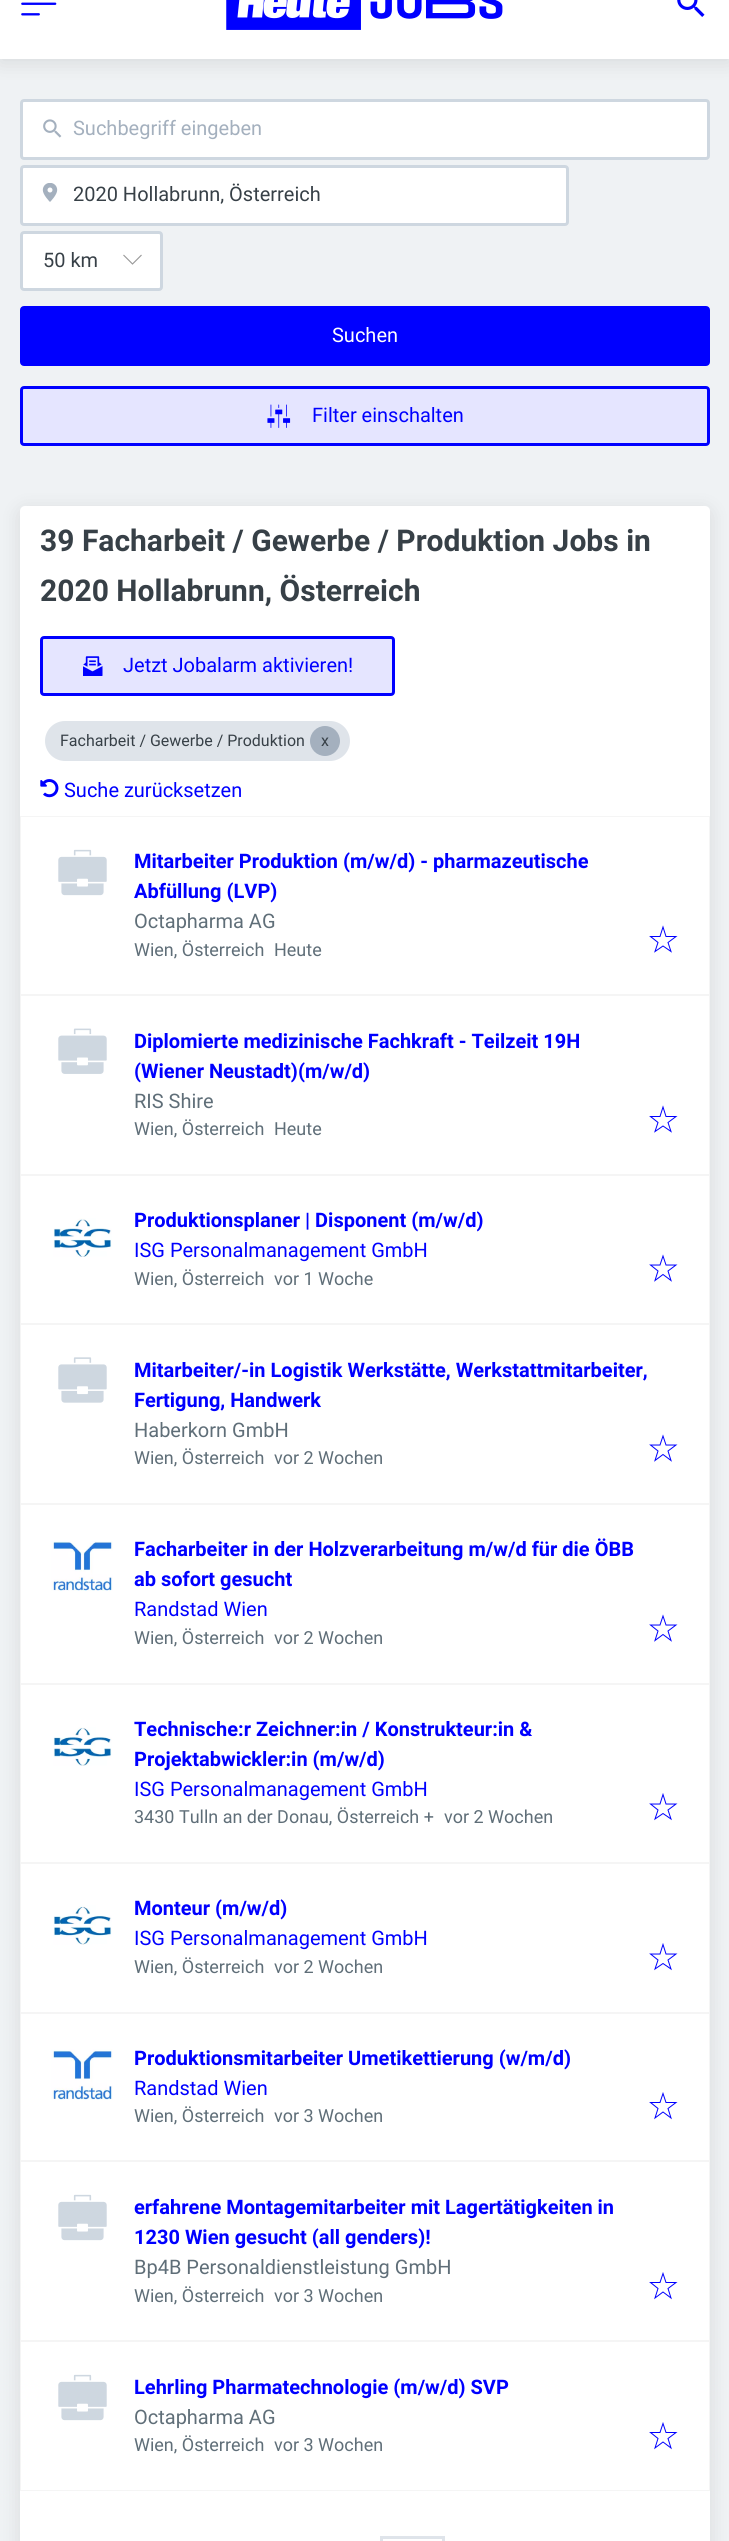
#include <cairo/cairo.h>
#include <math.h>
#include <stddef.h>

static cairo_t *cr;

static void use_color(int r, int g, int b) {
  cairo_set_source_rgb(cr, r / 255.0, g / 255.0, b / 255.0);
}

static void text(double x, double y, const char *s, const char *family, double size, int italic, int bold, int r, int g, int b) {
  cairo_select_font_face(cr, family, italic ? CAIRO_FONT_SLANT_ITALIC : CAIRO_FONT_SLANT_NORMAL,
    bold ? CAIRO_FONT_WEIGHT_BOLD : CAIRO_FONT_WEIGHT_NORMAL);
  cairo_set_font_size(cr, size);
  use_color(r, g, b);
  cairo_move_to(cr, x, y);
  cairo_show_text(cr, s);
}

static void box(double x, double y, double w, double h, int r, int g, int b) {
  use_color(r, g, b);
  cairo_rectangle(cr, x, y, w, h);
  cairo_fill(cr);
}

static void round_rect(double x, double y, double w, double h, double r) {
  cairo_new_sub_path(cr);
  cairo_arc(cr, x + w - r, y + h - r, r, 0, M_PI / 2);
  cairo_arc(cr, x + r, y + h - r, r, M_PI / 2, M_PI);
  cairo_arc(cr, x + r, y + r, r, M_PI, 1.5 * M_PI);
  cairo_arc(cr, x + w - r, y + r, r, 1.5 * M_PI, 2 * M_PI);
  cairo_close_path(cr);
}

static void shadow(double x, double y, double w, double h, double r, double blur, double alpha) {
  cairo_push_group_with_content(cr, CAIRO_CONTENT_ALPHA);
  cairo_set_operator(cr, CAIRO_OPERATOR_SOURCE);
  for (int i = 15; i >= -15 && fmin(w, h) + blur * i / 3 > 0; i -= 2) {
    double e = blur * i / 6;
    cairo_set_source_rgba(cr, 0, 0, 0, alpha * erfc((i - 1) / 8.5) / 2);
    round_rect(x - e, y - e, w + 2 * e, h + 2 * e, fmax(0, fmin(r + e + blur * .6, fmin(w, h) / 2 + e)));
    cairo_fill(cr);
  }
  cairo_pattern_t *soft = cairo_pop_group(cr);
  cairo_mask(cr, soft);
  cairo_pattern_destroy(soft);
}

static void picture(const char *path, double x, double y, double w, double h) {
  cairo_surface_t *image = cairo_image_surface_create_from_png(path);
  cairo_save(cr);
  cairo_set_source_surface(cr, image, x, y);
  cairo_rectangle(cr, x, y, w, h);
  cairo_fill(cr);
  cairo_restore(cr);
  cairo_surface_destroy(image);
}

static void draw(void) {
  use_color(239, 242, 244);
  cairo_paint(cr);
  use_color(0, 0, 0);
  shadow(0, -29, 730, 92, 0, 9.5, 0.1);
  box(0, 0, 729, 59, 255, 255, 255);
  picture("img_01.png", 21, 2, 36, 14);
  picture("img_02.png", 226, 0, 277, 30);
  picture("img_03.png", 677, 0, 28, 17);
  round_rect(21.5, 100.5, 687, 58, 2.5);
  cairo_fill_preserve(cr);
  use_color(206, 215, 224);
  cairo_set_line_width(cr, 3);
  cairo_stroke(cr);
  picture("img_04.png", 43, 119, 19, 19);
  use_color(255, 255, 255);
  round_rect(21.5, 166.5, 546, 58, 2.5);
  cairo_fill_preserve(cr);
  use_color(206, 215, 224);
  cairo_stroke(cr);
  picture("img_05.png", 42, 183, 16, 19);
  use_color(255, 255, 255);
  round_rect(21.5, 232.5, 140, 57, 2.5);
  cairo_fill_preserve(cr);
  use_color(206, 215, 224);
  cairo_stroke(cr);
  cairo_new_path(cr);
  cairo_move_to(cr, 123.5, 255);
  cairo_line_to(cr, 132.5, 264);
  cairo_line_to(cr, 141.5, 255);
  use_color(151, 151, 151);
  cairo_set_line_width(cr, 1.1);
  cairo_stroke(cr);
  use_color(0, 0, 255);
  round_rect(21.5, 307.5, 687, 57, 2.5);
  cairo_fill_preserve(cr);
  cairo_set_line_width(cr, 3);
  cairo_stroke(cr);
  use_color(229, 229, 255);
  round_rect(21.5, 387.5, 687, 57, 2.5);
  cairo_fill_preserve(cr);
  use_color(0, 0, 255);
  cairo_stroke(cr);
  picture("img_06.png", 267, 404, 24, 24);
  use_color(0, 0, 0);
  shadow(20, 510, 690, 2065, 5, 9.5, 0.1);
  use_color(255, 255, 255);
  round_rect(20, 506, 690, 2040, 5);
  cairo_fill(cr);
  use_color(229, 229, 255);
  round_rect(41.5, 637.5, 352, 57, 2.5);
  cairo_fill_preserve(cr);
  use_color(0, 0, 255);
  cairo_stroke(cr);
  picture("img_07.png", 83, 656, 20, 20);
  use_color(223, 228, 234);
  round_rect(45, 721, 305, 40, 20);
  cairo_fill(cr);
  use_color(164, 176, 190);
  cairo_arc(cr, 325, 741, 15, 0, 2 * M_PI);
  cairo_fill(cr);
  picture("img_08.png", 40, 779, 19, 19);
  cairo_rectangle(cr, 20.5, 816.5, 689, 178);
  use_color(245, 245, 245);
  cairo_set_line_width(cr, 1);
  cairo_stroke(cr);
  picture("img_09.png", 58, 849, 49, 47);
  cairo_new_path(cr);
  cairo_move_to(cr, 663, 927);
  cairo_line_to(cr, 666, 936.5);
  cairo_line_to(cr, 676, 936.5);
  cairo_line_to(cr, 668, 942.5);
  cairo_line_to(cr, 671, 951.5);
  cairo_line_to(cr, 663, 946);
  cairo_line_to(cr, 655, 951.5);
  cairo_line_to(cr, 658, 942.5);
  cairo_line_to(cr, 650.5, 936.5);
  cairo_line_to(cr, 660, 936.5);
  cairo_close_path(cr);
  use_color(0, 0, 255);
  cairo_set_line_cap(cr, CAIRO_LINE_CAP_SQUARE);
  cairo_stroke(cr);
  cairo_rectangle(cr, 20.5, 995.5, 689, 179);
  use_color(245, 245, 245);
  cairo_set_line_cap(cr, CAIRO_LINE_CAP_BUTT);
  cairo_stroke(cr);
  picture("img_10.png", 58, 1028, 49, 46);
  cairo_new_path(cr);
  cairo_move_to(cr, 663, 1107);
  cairo_line_to(cr, 666, 1116.5);
  cairo_line_to(cr, 676, 1116.5);
  cairo_line_to(cr, 668, 1122.5);
  cairo_line_to(cr, 671, 1131.5);
  cairo_line_to(cr, 663, 1126);
  cairo_line_to(cr, 655, 1131.5);
  cairo_line_to(cr, 658, 1122.5);
  cairo_line_to(cr, 650.5, 1116.5);
  cairo_line_to(cr, 660, 1116.5);
  cairo_close_path(cr);
  use_color(0, 0, 255);
  cairo_set_line_cap(cr, CAIRO_LINE_CAP_SQUARE);
  cairo_stroke(cr);
  cairo_rectangle(cr, 20.5, 1175.5, 689, 148);
  use_color(245, 245, 245);
  cairo_set_line_cap(cr, CAIRO_LINE_CAP_BUTT);
  cairo_stroke(cr);
  picture("img_11.png", 53, 1218, 59, 39);
  cairo_new_path(cr);
  cairo_move_to(cr, 663, 1256);
  cairo_line_to(cr, 666, 1265);
  cairo_line_to(cr, 676, 1265);
  cairo_line_to(cr, 668, 1271);
  cairo_line_to(cr, 671, 1280.5);
  cairo_line_to(cr, 663, 1274.5);
  cairo_line_to(cr, 655, 1280.5);
  cairo_line_to(cr, 658, 1271);
  cairo_line_to(cr, 650.5, 1265);
  cairo_line_to(cr, 660, 1265);
  cairo_close_path(cr);
  use_color(0, 0, 255);
  cairo_set_line_cap(cr, CAIRO_LINE_CAP_SQUARE);
  cairo_stroke(cr);
  cairo_rectangle(cr, 20.5, 1324.5, 689, 179);
  use_color(245, 245, 245);
  cairo_set_line_cap(cr, CAIRO_LINE_CAP_BUTT);
  cairo_stroke(cr);
  picture("img_12.png", 58, 1357, 49, 46);
  cairo_new_path(cr);
  cairo_move_to(cr, 663, 1436);
  cairo_line_to(cr, 666, 1445);
  cairo_line_to(cr, 676, 1445);
  cairo_line_to(cr, 668, 1451);
  cairo_line_to(cr, 671, 1460.5);
  cairo_line_to(cr, 663, 1454.5);
  cairo_line_to(cr, 655, 1460.5);
  cairo_line_to(cr, 658, 1451);
  cairo_line_to(cr, 650.5, 1445);
  cairo_line_to(cr, 660, 1445);
  cairo_close_path(cr);
  use_color(0, 0, 255);
  cairo_set_line_cap(cr, CAIRO_LINE_CAP_SQUARE);
  cairo_stroke(cr);
  cairo_rectangle(cr, 20.5, 1504.5, 689, 179);
  use_color(245, 245, 245);
  cairo_set_line_cap(cr, CAIRO_LINE_CAP_BUTT);
  cairo_stroke(cr);
  picture("img_13.png", 51, 1541, 62, 50);
  cairo_new_path(cr);
  cairo_move_to(cr, 663, 1616);
  cairo_line_to(cr, 666, 1625);
  cairo_line_to(cr, 676, 1625);
  cairo_line_to(cr, 668, 1631);
  cairo_line_to(cr, 671, 1640.5);
  cairo_line_to(cr, 663, 1634.5);
  cairo_line_to(cr, 655, 1640.5);
  cairo_line_to(cr, 658, 1631);
  cairo_line_to(cr, 650.5, 1625);
  cairo_line_to(cr, 660, 1625);
  cairo_close_path(cr);
  use_color(0, 0, 255);
  cairo_set_line_cap(cr, CAIRO_LINE_CAP_SQUARE);
  cairo_stroke(cr);
  cairo_rectangle(cr, 20.5, 1684.5, 689, 178);
  use_color(245, 245, 245);
  cairo_set_line_cap(cr, CAIRO_LINE_CAP_BUTT);
  cairo_stroke(cr);
  picture("img_14.png", 53, 1727, 59, 39);
  cairo_new_path(cr);
  cairo_move_to(cr, 663, 1794.5);
  cairo_line_to(cr, 666, 1804);
  cairo_line_to(cr, 676, 1804);
  cairo_line_to(cr, 668, 1810);
  cairo_line_to(cr, 671, 1819);
  cairo_line_to(cr, 663, 1813.5);
  cairo_line_to(cr, 655, 1819);
  cairo_line_to(cr, 658, 1810);
  cairo_line_to(cr, 650.5, 1804);
  cairo_line_to(cr, 660, 1804);
  cairo_close_path(cr);
  use_color(0, 0, 255);
  cairo_set_line_cap(cr, CAIRO_LINE_CAP_SQUARE);
  cairo_stroke(cr);
  cairo_rectangle(cr, 20.5, 1863.5, 689, 149);
  use_color(245, 245, 245);
  cairo_set_line_cap(cr, CAIRO_LINE_CAP_BUTT);
  cairo_stroke(cr);
  picture("img_15.png", 53, 1905, 59, 40);
  cairo_new_path(cr);
  cairo_move_to(cr, 663, 1944.5);
  cairo_line_to(cr, 666, 1954);
  cairo_line_to(cr, 676, 1954);
  cairo_line_to(cr, 668, 1960);
  cairo_line_to(cr, 671, 1969);
  cairo_line_to(cr, 663, 1963.5);
  cairo_line_to(cr, 655, 1969);
  cairo_line_to(cr, 658, 1960);
  cairo_line_to(cr, 650.5, 1954);
  cairo_line_to(cr, 660, 1954);
  cairo_close_path(cr);
  use_color(0, 0, 255);
  cairo_set_line_cap(cr, CAIRO_LINE_CAP_SQUARE);
  cairo_stroke(cr);
  cairo_rectangle(cr, 20.5, 2013.5, 689, 147);
  use_color(245, 245, 245);
  cairo_set_line_cap(cr, CAIRO_LINE_CAP_BUTT);
  cairo_stroke(cr);
  picture("img_16.png", 51, 2049, 62, 51);
  cairo_new_path(cr);
  cairo_move_to(cr, 663, 2093.5);
  cairo_line_to(cr, 666, 2102.5);
  cairo_line_to(cr, 676, 2102.5);
  cairo_line_to(cr, 668, 2108.5);
  cairo_line_to(cr, 671, 2118);
  cairo_line_to(cr, 663, 2112);
  cairo_line_to(cr, 655, 2118);
  cairo_line_to(cr, 658, 2108.5);
  cairo_line_to(cr, 650.5, 2102.5);
  cairo_line_to(cr, 660, 2102.5);
  cairo_close_path(cr);
  use_color(0, 0, 255);
  cairo_set_line_cap(cr, CAIRO_LINE_CAP_SQUARE);
  cairo_stroke(cr);
  cairo_rectangle(cr, 20.5, 2161.5, 689, 179);
  use_color(245, 245, 245);
  cairo_set_line_cap(cr, CAIRO_LINE_CAP_BUTT);
  cairo_stroke(cr);
  picture("img_09.png", 58, 2194, 49, 47);
  cairo_new_path(cr);
  cairo_move_to(cr, 663, 2273.5);
  cairo_line_to(cr, 666, 2282.5);
  cairo_line_to(cr, 676, 2282.5);
  cairo_line_to(cr, 668, 2288.5);
  cairo_line_to(cr, 671, 2298);
  cairo_line_to(cr, 663, 2292);
  cairo_line_to(cr, 655, 2298);
  cairo_line_to(cr, 658, 2288.5);
  cairo_line_to(cr, 650.5, 2282.5);
  cairo_line_to(cr, 660, 2282.5);
  cairo_close_path(cr);
  use_color(0, 0, 255);
  cairo_set_line_cap(cr, CAIRO_LINE_CAP_SQUARE);
  cairo_stroke(cr);
  cairo_rectangle(cr, 20.5, 2341.5, 689, 149);
  use_color(245, 245, 245);
  cairo_set_line_cap(cr, CAIRO_LINE_CAP_BUTT);
  cairo_stroke(cr);
  picture("img_09.png", 58, 2374, 49, 47);
  cairo_new_path(cr);
  cairo_move_to(cr, 663, 2423.5);
  cairo_line_to(cr, 666, 2432.5);
  cairo_line_to(cr, 676, 2432.5);
  cairo_line_to(cr, 668, 2438.5);
  cairo_line_to(cr, 671, 2448);
  cairo_line_to(cr, 663, 2442);
  cairo_line_to(cr, 655, 2448);
  cairo_line_to(cr, 658, 2438.5);
  cairo_line_to(cr, 650.5, 2432.5);
  cairo_line_to(cr, 660, 2432.5);
  cairo_close_path(cr);
  use_color(0, 0, 255);
  cairo_set_line_cap(cr, CAIRO_LINE_CAP_SQUARE);
  cairo_stroke(cr);
  cairo_rectangle(cr, 381.5, 2537.5, 62, 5);
  use_color(223, 228, 234);
  cairo_set_line_width(cr, 3);
  cairo_set_line_cap(cr, CAIRO_LINE_CAP_BUTT);
  cairo_stroke(cr);
  text(73, 135, "Suchbegriff eingeben", "Roboto", 20, 0, 0, 164, 176, 190);
  text(73, 201, "2020 Hollabrunn, Österreich", "Roboto", 20, 0, 0, 55, 64, 71);
  text(43, 267, "50 km", "Roboto", 20, 0, 0, 55, 64, 71);
  text(332, 342, "Suchen", "Roboto", 20, 0, 0, 255, 255, 255);
  text(312, 422, "Filter einschalten", "Roboto", 20, 0, 0, 0, 0, 255);
  text(40, 551, "39 Facharbeit / Gewerbe / Produktion Jobs in", "Roboto", 30, 0, 1, 55, 64, 71);
  text(40, 601, "2020 Hollabrunn, Österreich", "Roboto", 30, 0, 1, 55, 64, 71);
  text(123, 672, "Jetzt Jobalarm aktivieren!", "Roboto", 20, 0, 0, 0, 0, 255);
  text(60, 746, "Facharbeit / Gewerbe / Produktion", "Roboto", 16, 0, 0, 55, 64, 71);
  text(321, 746, "x", "Roboto", 16, 0, 0, 55, 64, 71);
  text(64, 797, "Suche zurücksetzen", "Roboto", 20, 0, 0, 0, 0, 255);
  text(134, 868, "Mitarbeiter Produktion (m/w/d) - pharmazeutische", "Roboto", 20, 0, 1, 0, 0, 255);
  text(134, 898, "Abfüllung (LVP)", "Roboto", 20, 0, 1, 0, 0, 255);
  text(134, 928, "Octapharma AG", "Roboto", 20, 0, 0, 95, 110, 120);
  text(134, 956, "Wien, Österreich", "Roboto", 18, 0, 0, 95, 110, 120);
  text(274, 956, "Heute", "Roboto", 18, 0, 0, 95, 110, 120);
  text(134, 1048, "Diplomierte medizinische Fachkraft - Teilzeit 19H", "Roboto", 20, 0, 1, 0, 0, 255);
  text(134, 1078, "(Wiener Neustadt)(m/w/d)", "Roboto", 20, 0, 1, 0, 0, 255);
  text(134, 1108, "RIS Shire", "Roboto", 20, 0, 0, 95, 110, 120);
  text(134, 1135, "Wien, Österreich", "Roboto", 18, 0, 0, 95, 110, 120);
  text(274, 1135, "Heute", "Roboto", 18, 0, 0, 95, 110, 120);
  text(134, 1227, "Produktionsplaner | Disponent (m/w/d)", "Roboto", 20, 0, 1, 0, 0, 255);
  text(134, 1257, "ISG Personalmanagement GmbH", "Roboto", 20, 0, 0, 0, 0, 255);
  text(134, 1285, "Wien, Österreich", "Roboto", 18, 0, 0, 95, 110, 120);
  text(274, 1285, "vor 1 Woche", "Roboto", 18, 0, 0, 95, 110, 120);
  text(134, 1377, "Mitarbeiter/-in Logistik Werkstätte, Werkstattmitarbeiter,", "Roboto", 20, 0, 1, 0, 0, 255);
  text(134, 1407, "Fertigung, Handwerk", "Roboto", 20, 0, 1, 0, 0, 255);
  text(134, 1437, "Haberkorn GmbH", "Roboto", 20, 0, 0, 95, 110, 120);
  text(134, 1464, "Wien, Österreich", "Roboto", 18, 0, 0, 95, 110, 120);
  text(274, 1464, "vor 2 Wochen", "Roboto", 18, 0, 0, 95, 110, 120);
  text(134, 1556, "Facharbeiter in der Holzverarbeitung m/w/d für die ÖBB", "Roboto", 20, 0, 1, 0, 0, 255);
  text(134, 1586, "ab sofort gesucht", "Roboto", 20, 0, 1, 0, 0, 255);
  text(134, 1616, "Randstad Wien", "Roboto", 20, 0, 0, 0, 0, 255);
  text(134, 1644, "Wien, Österreich", "Roboto", 18, 0, 0, 95, 110, 120);
  text(274, 1644, "vor 2 Wochen", "Roboto", 18, 0, 0, 95, 110, 120);
  text(134, 1736, "Technische:r Zeichner:in / Konstrukteur:in &", "Roboto", 20, 0, 1, 0, 0, 255);
  text(134, 1766, "Projektabwickler:in (m/w/d)", "Roboto", 20, 0, 1, 0, 0, 255);
  text(134, 1796, "ISG Personalmanagement GmbH", "Roboto", 20, 0, 0, 0, 0, 255);
  text(134, 1823, "3430 Tulln an der Donau, Österreich +", "Roboto", 18, 0, 0, 95, 110, 120);
  text(444, 1823, "vor 2 Wochen", "Roboto", 18, 0, 0, 95, 110, 120);
  text(134, 1915, "Monteur (m/w/d)", "Roboto", 20, 0, 1, 0, 0, 255);
  text(134, 1945, "ISG Personalmanagement GmbH", "Roboto", 20, 0, 0, 0, 0, 255);
  text(134, 1973, "Wien, Österreich", "Roboto", 18, 0, 0, 95, 110, 120);
  text(274, 1973, "vor 2 Wochen", "Roboto", 18, 0, 0, 95, 110, 120);
  text(134, 2065, "Produktionsmitarbeiter Umetikettierung (w/m/d)", "Roboto", 20, 0, 1, 0, 0, 255);
  text(134, 2095, "Randstad Wien", "Roboto", 20, 0, 0, 0, 0, 255);
  text(134, 2122, "Wien, Österreich", "Roboto", 18, 0, 0, 95, 110, 120);
  text(274, 2122, "vor 3 Wochen", "Roboto", 18, 0, 0, 95, 110, 120);
  text(134, 2214, "erfahrene Montagemitarbeiter mit Lagertätigkeiten in", "Roboto", 20, 0, 1, 0, 0, 255);
  text(134, 2244, "1230 Wien gesucht (all genders)!", "Roboto", 20, 0, 1, 0, 0, 255);
  text(134, 2274, "Bp4B Personaldienstleistung GmbH", "Roboto", 20, 0, 0, 95, 110, 120);
  text(134, 2302, "Wien, Österreich", "Roboto", 18, 0, 0, 95, 110, 120);
  text(274, 2302, "vor 3 Wochen", "Roboto", 18, 0, 0, 95, 110, 120);
  text(134, 2394, "Lehrling Pharmatechnologie (m/w/d) SVP", "Roboto", 20, 0, 1, 0, 0, 255);
  text(134, 2424, "Octapharma AG", "Roboto", 20, 0, 0, 95, 110, 120);
  text(134, 2451, "Wien, Österreich", "Roboto", 18, 0, 0, 95, 110, 120);
  text(274, 2451, "vor 3 Wochen", "Roboto", 18, 0, 0, 95, 110, 120);
}

int main(void) {
  cairo_surface_t *surface = cairo_image_surface_create(CAIRO_FORMAT_RGB24, 729, 2541);
  cr = cairo_create(surface);
  cairo_font_options_t *options = cairo_font_options_create();
  cairo_font_options_set_hint_metrics(options, CAIRO_HINT_METRICS_OFF);
  cairo_font_options_set_hint_style(options, CAIRO_HINT_STYLE_NONE);
  cairo_set_font_options(cr, options);
  cairo_set_miter_limit(cr, 4);
  draw();
  cairo_surface_write_to_png(surface, "out.png");
  cairo_font_options_destroy(options);
  cairo_destroy(cr);
  cairo_surface_destroy(surface);
  return 0;
}
